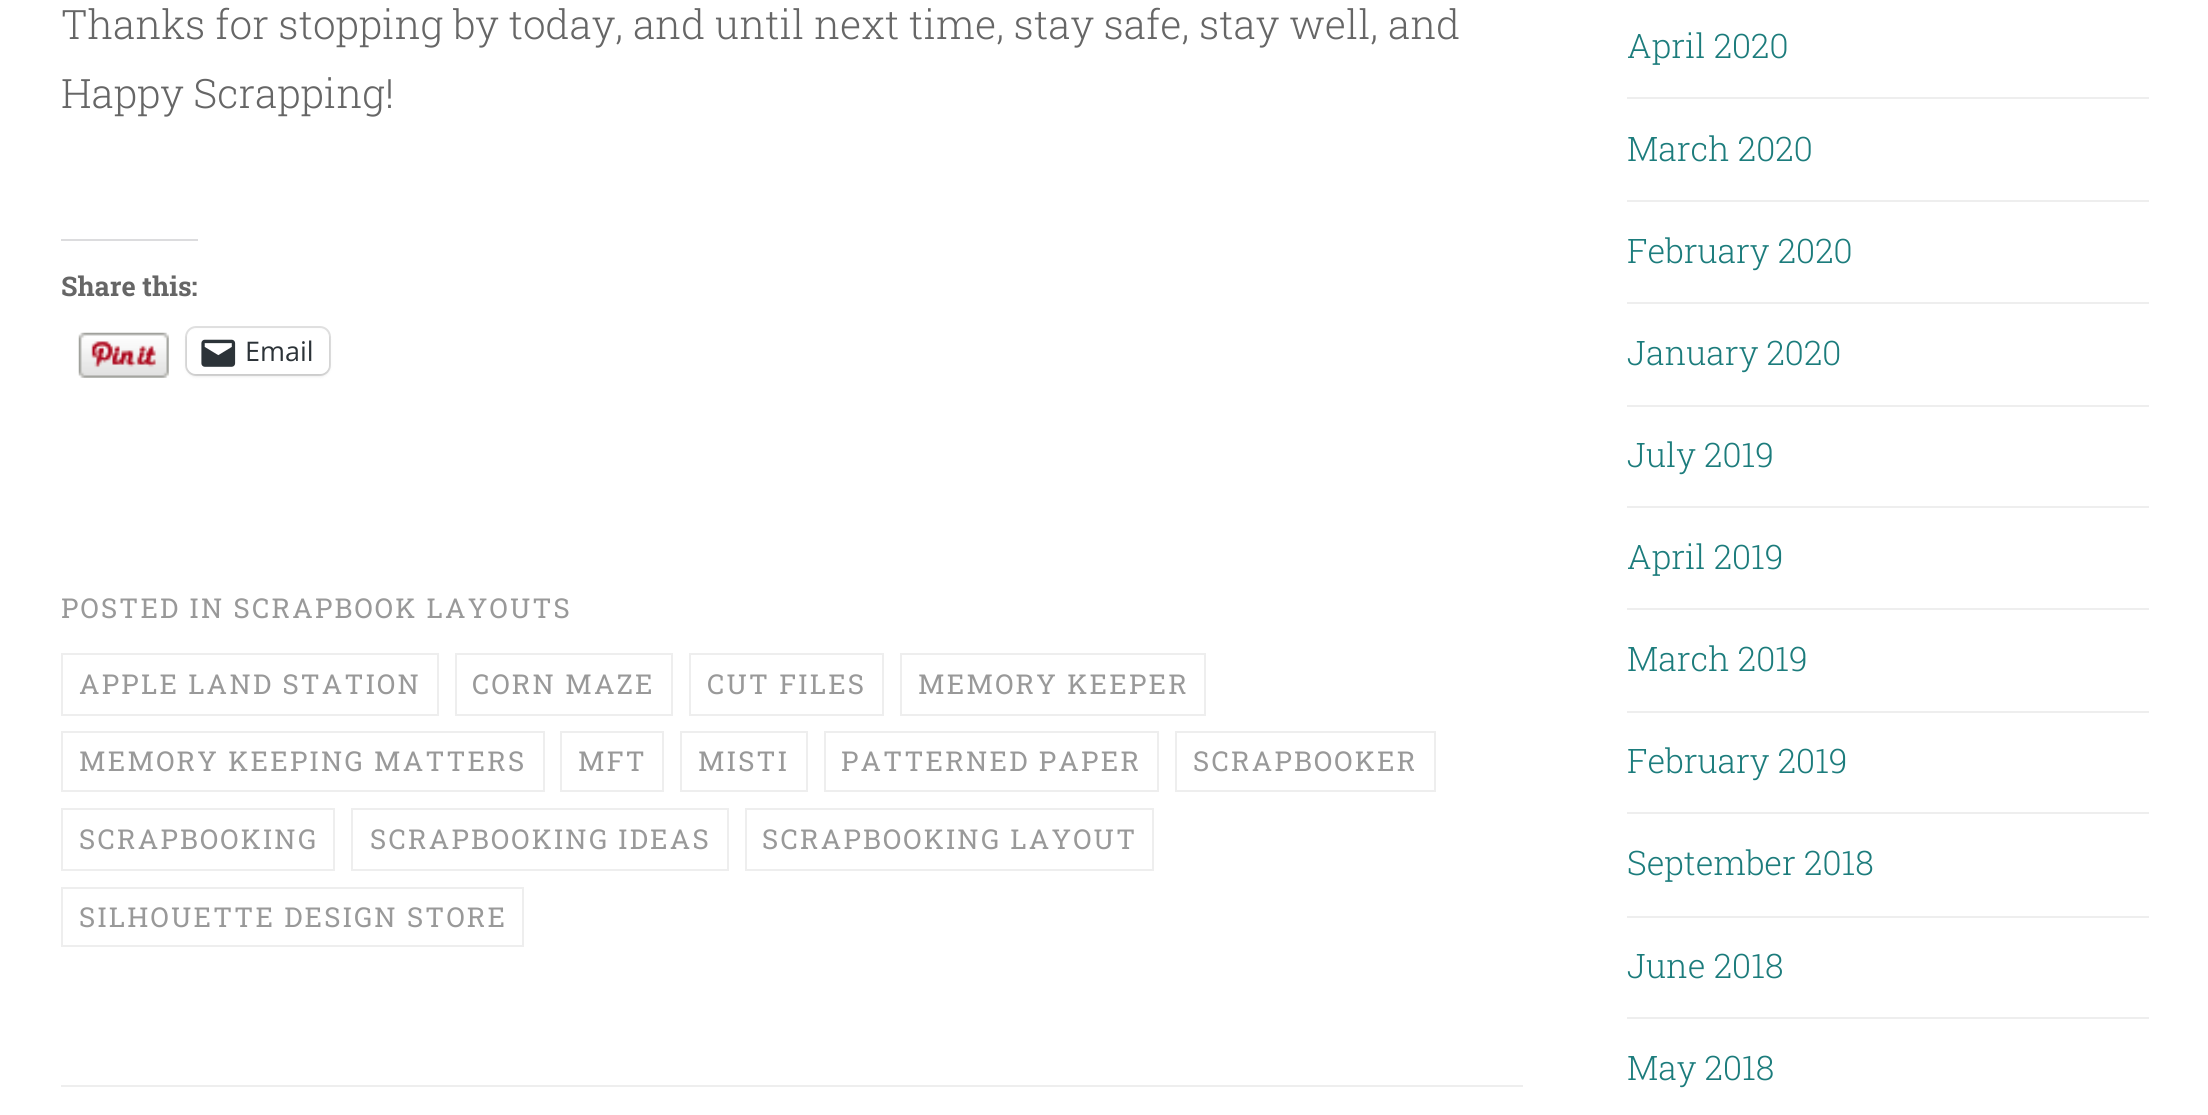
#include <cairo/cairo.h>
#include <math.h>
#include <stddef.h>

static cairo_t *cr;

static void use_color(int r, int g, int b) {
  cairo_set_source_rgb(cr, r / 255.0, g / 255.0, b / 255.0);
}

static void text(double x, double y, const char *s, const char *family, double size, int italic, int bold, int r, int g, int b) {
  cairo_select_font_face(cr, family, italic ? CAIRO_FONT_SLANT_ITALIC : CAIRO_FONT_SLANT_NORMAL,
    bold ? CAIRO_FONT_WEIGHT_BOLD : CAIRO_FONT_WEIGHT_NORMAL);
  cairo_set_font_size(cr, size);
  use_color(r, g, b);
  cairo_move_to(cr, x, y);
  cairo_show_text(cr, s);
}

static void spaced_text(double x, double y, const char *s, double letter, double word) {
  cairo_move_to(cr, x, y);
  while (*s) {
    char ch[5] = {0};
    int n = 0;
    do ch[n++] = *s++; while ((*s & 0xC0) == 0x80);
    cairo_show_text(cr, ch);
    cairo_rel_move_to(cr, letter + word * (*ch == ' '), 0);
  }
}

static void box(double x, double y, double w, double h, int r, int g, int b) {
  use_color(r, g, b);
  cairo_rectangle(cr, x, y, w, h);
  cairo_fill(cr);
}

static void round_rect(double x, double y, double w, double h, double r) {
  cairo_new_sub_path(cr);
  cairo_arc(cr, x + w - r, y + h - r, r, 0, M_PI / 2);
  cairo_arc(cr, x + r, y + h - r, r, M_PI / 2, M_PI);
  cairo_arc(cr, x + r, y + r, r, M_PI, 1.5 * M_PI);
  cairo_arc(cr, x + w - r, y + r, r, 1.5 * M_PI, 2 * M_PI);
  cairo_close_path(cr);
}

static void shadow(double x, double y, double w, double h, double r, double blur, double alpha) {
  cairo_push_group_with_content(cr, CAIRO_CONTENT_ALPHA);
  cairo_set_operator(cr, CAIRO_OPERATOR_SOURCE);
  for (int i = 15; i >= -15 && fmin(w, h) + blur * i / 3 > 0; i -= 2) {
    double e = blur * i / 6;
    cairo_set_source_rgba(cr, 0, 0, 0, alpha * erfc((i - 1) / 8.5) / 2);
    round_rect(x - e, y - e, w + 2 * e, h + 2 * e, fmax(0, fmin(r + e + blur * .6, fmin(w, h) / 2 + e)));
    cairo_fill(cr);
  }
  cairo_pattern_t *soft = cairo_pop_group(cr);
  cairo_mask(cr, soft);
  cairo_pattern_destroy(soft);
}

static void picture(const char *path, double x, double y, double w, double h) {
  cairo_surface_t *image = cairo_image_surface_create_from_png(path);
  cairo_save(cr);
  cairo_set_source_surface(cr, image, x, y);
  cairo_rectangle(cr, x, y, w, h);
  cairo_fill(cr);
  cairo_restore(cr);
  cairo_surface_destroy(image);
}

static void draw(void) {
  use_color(255, 255, 255);
  cairo_paint(cr);
  box(61, 239, 137, 2, 220, 220, 222);
  picture("img_01.png", 78, 332, 91, 46);
  round_rect(186, 327, 144, 48, 10);
  use_color(224, 224, 224);
  cairo_stroke(cr);
  use_color(0, 0, 0);
  shadow(187, 331, 142, 45, 9, 2, 0.12);
  use_color(255, 255, 255);
  round_rect(187, 329, 142, 45, 9);
  cairo_fill(cr);
  picture("img_02.png", 201, 339, 35, 28);
  cairo_rectangle(cr, 62, 654, 376, 61);
  use_color(238, 238, 238);
  cairo_stroke(cr);
  cairo_rectangle(cr, 456, 654, 216, 61);
  cairo_stroke(cr);
  cairo_rectangle(cr, 690, 654, 193, 61);
  cairo_stroke(cr);
  cairo_rectangle(cr, 901, 654, 304, 61);
  cairo_stroke(cr);
  cairo_rectangle(cr, 62, 732, 482, 59);
  cairo_stroke(cr);
  cairo_rectangle(cr, 561, 732, 102, 59);
  cairo_stroke(cr);
  cairo_rectangle(cr, 681, 732, 126, 59);
  cairo_stroke(cr);
  cairo_rectangle(cr, 825, 732, 333, 59);
  cairo_stroke(cr);
  cairo_rectangle(cr, 1176, 732, 259, 59);
  cairo_stroke(cr);
  cairo_rectangle(cr, 62, 809, 272, 61);
  cairo_stroke(cr);
  cairo_rectangle(cr, 352, 809, 376, 61);
  cairo_stroke(cr);
  cairo_rectangle(cr, 746, 809, 407, 61);
  cairo_stroke(cr);
  cairo_rectangle(cr, 62, 888, 461, 58);
  cairo_stroke(cr);
  box(61, 1085, 1462, 2, 238, 238, 238);
  box(1627, 97, 522, 2, 238, 238, 238);
  box(1627, 200, 522, 2, 238, 238, 238);
  box(1627, 302, 522, 2, 238, 238, 238);
  box(1627, 405, 522, 2, 238, 238, 238);
  box(1627, 506, 522, 2, 238, 238, 238);
  box(1627, 608, 522, 2, 238, 238, 238);
  box(1627, 711, 522, 2, 238, 238, 238);
  box(1627, 812, 522, 2, 238, 238, 238);
  box(1627, 916, 522, 2, 238, 238, 238);
  box(1627, 1017, 522, 2, 238, 238, 238);
  text(61, 39, "Thanks for stopping by today, and until next time, stay safe, stay well, and", "Roboto Slab Light", 40.5, 0, 0, 102, 102, 102);
  text(61, 108, "Happy Scrapping!", "Roboto Slab Light", 40.5, 0, 0, 102, 102, 102);
  text(61, 296, "Share this:", "Roboto Slab", 27, 0, 1, 102, 102, 102);
  text(245, 361, "Email", "Open Sans", 27, 0, 0, 44, 51, 56);
  cairo_select_font_face(cr, "Roboto Slab", CAIRO_FONT_SLANT_NORMAL, CAIRO_FONT_WEIGHT_NORMAL);
  cairo_set_font_size(cr, 27.4);
  use_color(153, 153, 153);
  spaced_text(61, 618, "POSTED IN SCRAPBOOK LAYOUTS", 2.25, 0);
  spaced_text(79, 694, "APPLE LAND STATION", 2.25, 0);
  spaced_text(472, 694, "CORN MAZE", 2.25, 0);
  spaced_text(707, 694, "CUT FILES", 2.25, 0);
  spaced_text(918, 694, "MEMORY KEEPER", 2.25, 0);
  spaced_text(79, 771, "MEMORY KEEPING MATTERS", 2.25, 0);
  spaced_text(578, 771, "MFT", 2.25, 0);
  spaced_text(698, 771, "MISTI", 2.25, 0);
  spaced_text(841, 771, "PATTERNED PAPER", 2.25, 0);
  spaced_text(1193, 771, "SCRAPBOOKER", 2.25, 0);
  spaced_text(79, 849, "SCRAPBOOKING", 2.25, 0);
  spaced_text(370, 849, "SCRAPBOOKING IDEAS", 2.25, 0);
  spaced_text(762, 849, "SCRAPBOOKING LAYOUT", 2.25, 0);
  spaced_text(79, 927, "SILHOUETTE DESIGN STORE", 2.25, 0);
  text(1627, 58, "April 2020", "Roboto Slab Light", 33.75, 0, 0, 28, 124, 124);
  text(1627, 161, "March 2020", "Roboto Slab Light", 33.75, 0, 0, 28, 124, 124);
  text(1627, 263, "February 2020", "Roboto Slab Light", 33.75, 0, 0, 28, 124, 124);
  text(1627, 365, "January 2020", "Roboto Slab Light", 33.75, 0, 0, 28, 124, 124);
  text(1627, 467, "July 2019", "Roboto Slab Light", 33.75, 0, 0, 28, 124, 124);
  text(1627, 569, "April 2019", "Roboto Slab Light", 33.75, 0, 0, 28, 124, 124);
  text(1627, 671, "March 2019", "Roboto Slab Light", 33.75, 0, 0, 28, 124, 124);
  text(1627, 773, "February 2019", "Roboto Slab Light", 33.75, 0, 0, 28, 124, 124);
  text(1627, 875, "September 2018", "Roboto Slab Light", 33.75, 0, 0, 28, 124, 124);
  text(1627, 978, "June 2018", "Roboto Slab Light", 33.75, 0, 0, 28, 124, 124);
  text(1627, 1080, "May 2018", "Roboto Slab Light", 33.75, 0, 0, 28, 124, 124);
}

int main(void) {
  cairo_surface_t *surface = cairo_image_surface_create(CAIRO_FORMAT_RGB24, 2208, 1115);
  cr = cairo_create(surface);
  cairo_font_options_t *options = cairo_font_options_create();
  cairo_font_options_set_hint_metrics(options, CAIRO_HINT_METRICS_OFF);
  cairo_font_options_set_hint_style(options, CAIRO_HINT_STYLE_NONE);
  cairo_set_font_options(cr, options);
  cairo_set_miter_limit(cr, 4);
  draw();
  cairo_surface_write_to_png(surface, "out.png");
  cairo_font_options_destroy(options);
  cairo_destroy(cr);
  cairo_surface_destroy(surface);
  return 0;
}
